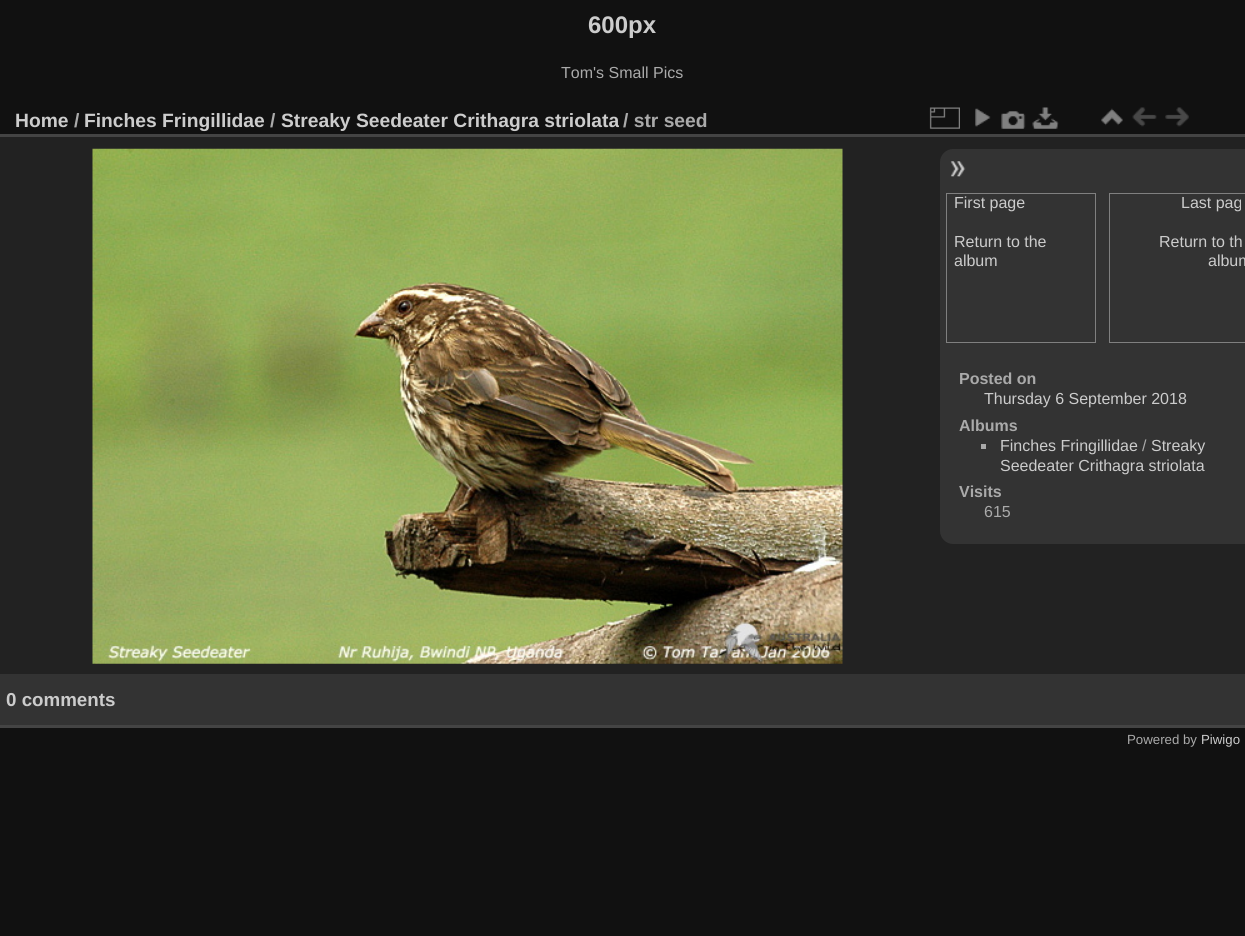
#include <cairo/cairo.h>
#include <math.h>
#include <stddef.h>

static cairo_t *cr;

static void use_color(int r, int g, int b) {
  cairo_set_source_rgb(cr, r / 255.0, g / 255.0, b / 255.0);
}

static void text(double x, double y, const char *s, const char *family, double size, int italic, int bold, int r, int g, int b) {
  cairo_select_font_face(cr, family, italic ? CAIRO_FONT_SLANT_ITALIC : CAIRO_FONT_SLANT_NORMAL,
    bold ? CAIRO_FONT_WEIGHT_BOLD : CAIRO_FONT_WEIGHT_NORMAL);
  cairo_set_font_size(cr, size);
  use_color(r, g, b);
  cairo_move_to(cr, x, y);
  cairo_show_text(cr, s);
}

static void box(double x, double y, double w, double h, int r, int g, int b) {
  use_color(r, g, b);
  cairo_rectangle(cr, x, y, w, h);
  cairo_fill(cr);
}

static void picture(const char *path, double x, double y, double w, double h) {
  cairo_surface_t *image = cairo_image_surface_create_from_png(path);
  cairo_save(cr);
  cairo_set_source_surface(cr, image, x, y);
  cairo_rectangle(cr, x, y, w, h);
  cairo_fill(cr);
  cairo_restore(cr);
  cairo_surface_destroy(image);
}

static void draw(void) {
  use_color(17, 17, 17);
  cairo_paint(cr);
  box(0, 137, 1245, 537, 34, 34, 34);
  box(0, 725, 1245, 3, 68, 68, 68);
  box(0, 134, 1245, 3, 68, 68, 68);
  picture("img_01.png", 929, 107, 31, 22);
  picture("img_02.png", 975, 108, 16, 19);
  picture("img_03.png", 1001, 111, 25, 18);
  picture("img_04.png", 1032, 107, 27, 22);
  picture("img_05.png", 1101, 108, 22, 18);
  picture("img_06.png", 1132, 107, 25, 20);
  picture("img_07.png", 1165, 107, 24, 20);
  picture("img_08.png", 92, 148, 751, 516);
  use_color(51, 51, 51);
  cairo_new_path(cr);
  cairo_move_to(cr, 953, 149);
  cairo_line_to(cr, 1245, 149);
  cairo_line_to(cr, 1245, 544);
  cairo_line_to(cr, 953, 544);
  cairo_curve_to(cr, 946, 544, 940, 538, 940, 531);
  cairo_line_to(cr, 940, 162);
  cairo_curve_to(cr, 940, 155, 946, 149, 953, 149);
  cairo_close_path(cr);
  cairo_fill(cr);
  picture("img_09.png", 950, 161, 16, 16);
  cairo_rectangle(cr, 946.5, 193.5, 149, 149);
  use_color(128, 128, 128);
  cairo_set_line_width(cr, 1);
  cairo_stroke(cr);
  cairo_rectangle(cr, 1109.5, 193.5, 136, 149);
  cairo_stroke(cr);
  box(981, 444, 5, 5, 170, 170, 170);
  box(0, 674, 1245, 51, 51, 51, 51);
  text(588, 33, "600px", "Liberation Sans", 24, 0, 1, 204, 204, 204);
  text(561, 78, "Tom's Small Pics", "Liberation Sans", 16, 0, 0, 170, 170, 170);
  text(15, 127, "Home", "Liberation Sans", 19.25, 0, 1, 204, 204, 204);
  text(74, 127, "/", "Liberation Sans", 19.25, 0, 1, 170, 170, 170);
  text(84, 127, "Finches Fringillidae", "Liberation Sans", 19.25, 0, 1, 204, 204, 204);
  text(270, 127, "/", "Liberation Sans", 19.25, 0, 1, 170, 170, 170);
  text(281, 127, "Streaky Seedeater Crithagra striolata", "Liberation Sans", 19.25, 0, 1, 204, 204, 204);
  text(623, 127, "/ str seed", "Liberation Sans", 19.25, 0, 1, 170, 170, 170);
  text(954, 208, "First page", "Liberation Sans", 16, 0, 0, 204, 204, 204);
  text(954, 247, "Return to the", "Liberation Sans", 16, 0, 0, 204, 204, 204);
  text(954, 266, "album", "Liberation Sans", 16, 0, 0, 204, 204, 204);
  text(1181, 208, "Last pag", "Liberation Sans", 16, 0, 0, 204, 204, 204);
  text(1159, 247, "Return to th", "Liberation Sans", 16, 0, 0, 204, 204, 204);
  text(1208, 266, "album", "Liberation Sans", 16, 0, 0, 204, 204, 204);
  text(959, 384, "Posted on", "Liberation Sans", 16, 0, 1, 170, 170, 170);
  text(984, 404, "Thursday 6 September 2018", "Liberation Sans", 16, 0, 0, 204, 204, 204);
  text(959, 431, "Albums", "Liberation Sans", 16, 0, 1, 170, 170, 170);
  text(1000, 451, "Finches Fringillidae", "Liberation Sans", 16, 0, 0, 204, 204, 204);
  text(1142, 451, "/", "Liberation Sans", 16, 0, 0, 170, 170, 170);
  text(1151, 451, "Streaky", "Liberation Sans", 16, 0, 0, 204, 204, 204);
  text(1000, 471, "Seedeater Crithagra striolata", "Liberation Sans", 16, 0, 0, 204, 204, 204);
  text(959, 497, "Visits", "Liberation Sans", 16, 0, 1, 170, 170, 170);
  text(984, 517, "615", "Liberation Sans", 16, 0, 0, 170, 170, 170);
  text(6, 706, "0 comments", "Liberation Sans", 18.75, 0, 1, 204, 204, 204);
  text(1127, 744, "Powered by", "Liberation Sans", 13.25, 0, 0, 170, 170, 170);
  text(1201, 744, "Piwigo", "Liberation Sans", 13.25, 0, 0, 204, 204, 204);
}

int main(void) {
  cairo_surface_t *surface = cairo_image_surface_create(CAIRO_FORMAT_RGB24, 1245, 936);
  cr = cairo_create(surface);
  cairo_font_options_t *options = cairo_font_options_create();
  cairo_font_options_set_hint_metrics(options, CAIRO_HINT_METRICS_OFF);
  cairo_font_options_set_hint_style(options, CAIRO_HINT_STYLE_NONE);
  cairo_set_font_options(cr, options);
  cairo_set_miter_limit(cr, 4);
  draw();
  cairo_surface_write_to_png(surface, "out.png");
  cairo_font_options_destroy(options);
  cairo_destroy(cr);
  cairo_surface_destroy(surface);
  return 0;
}
